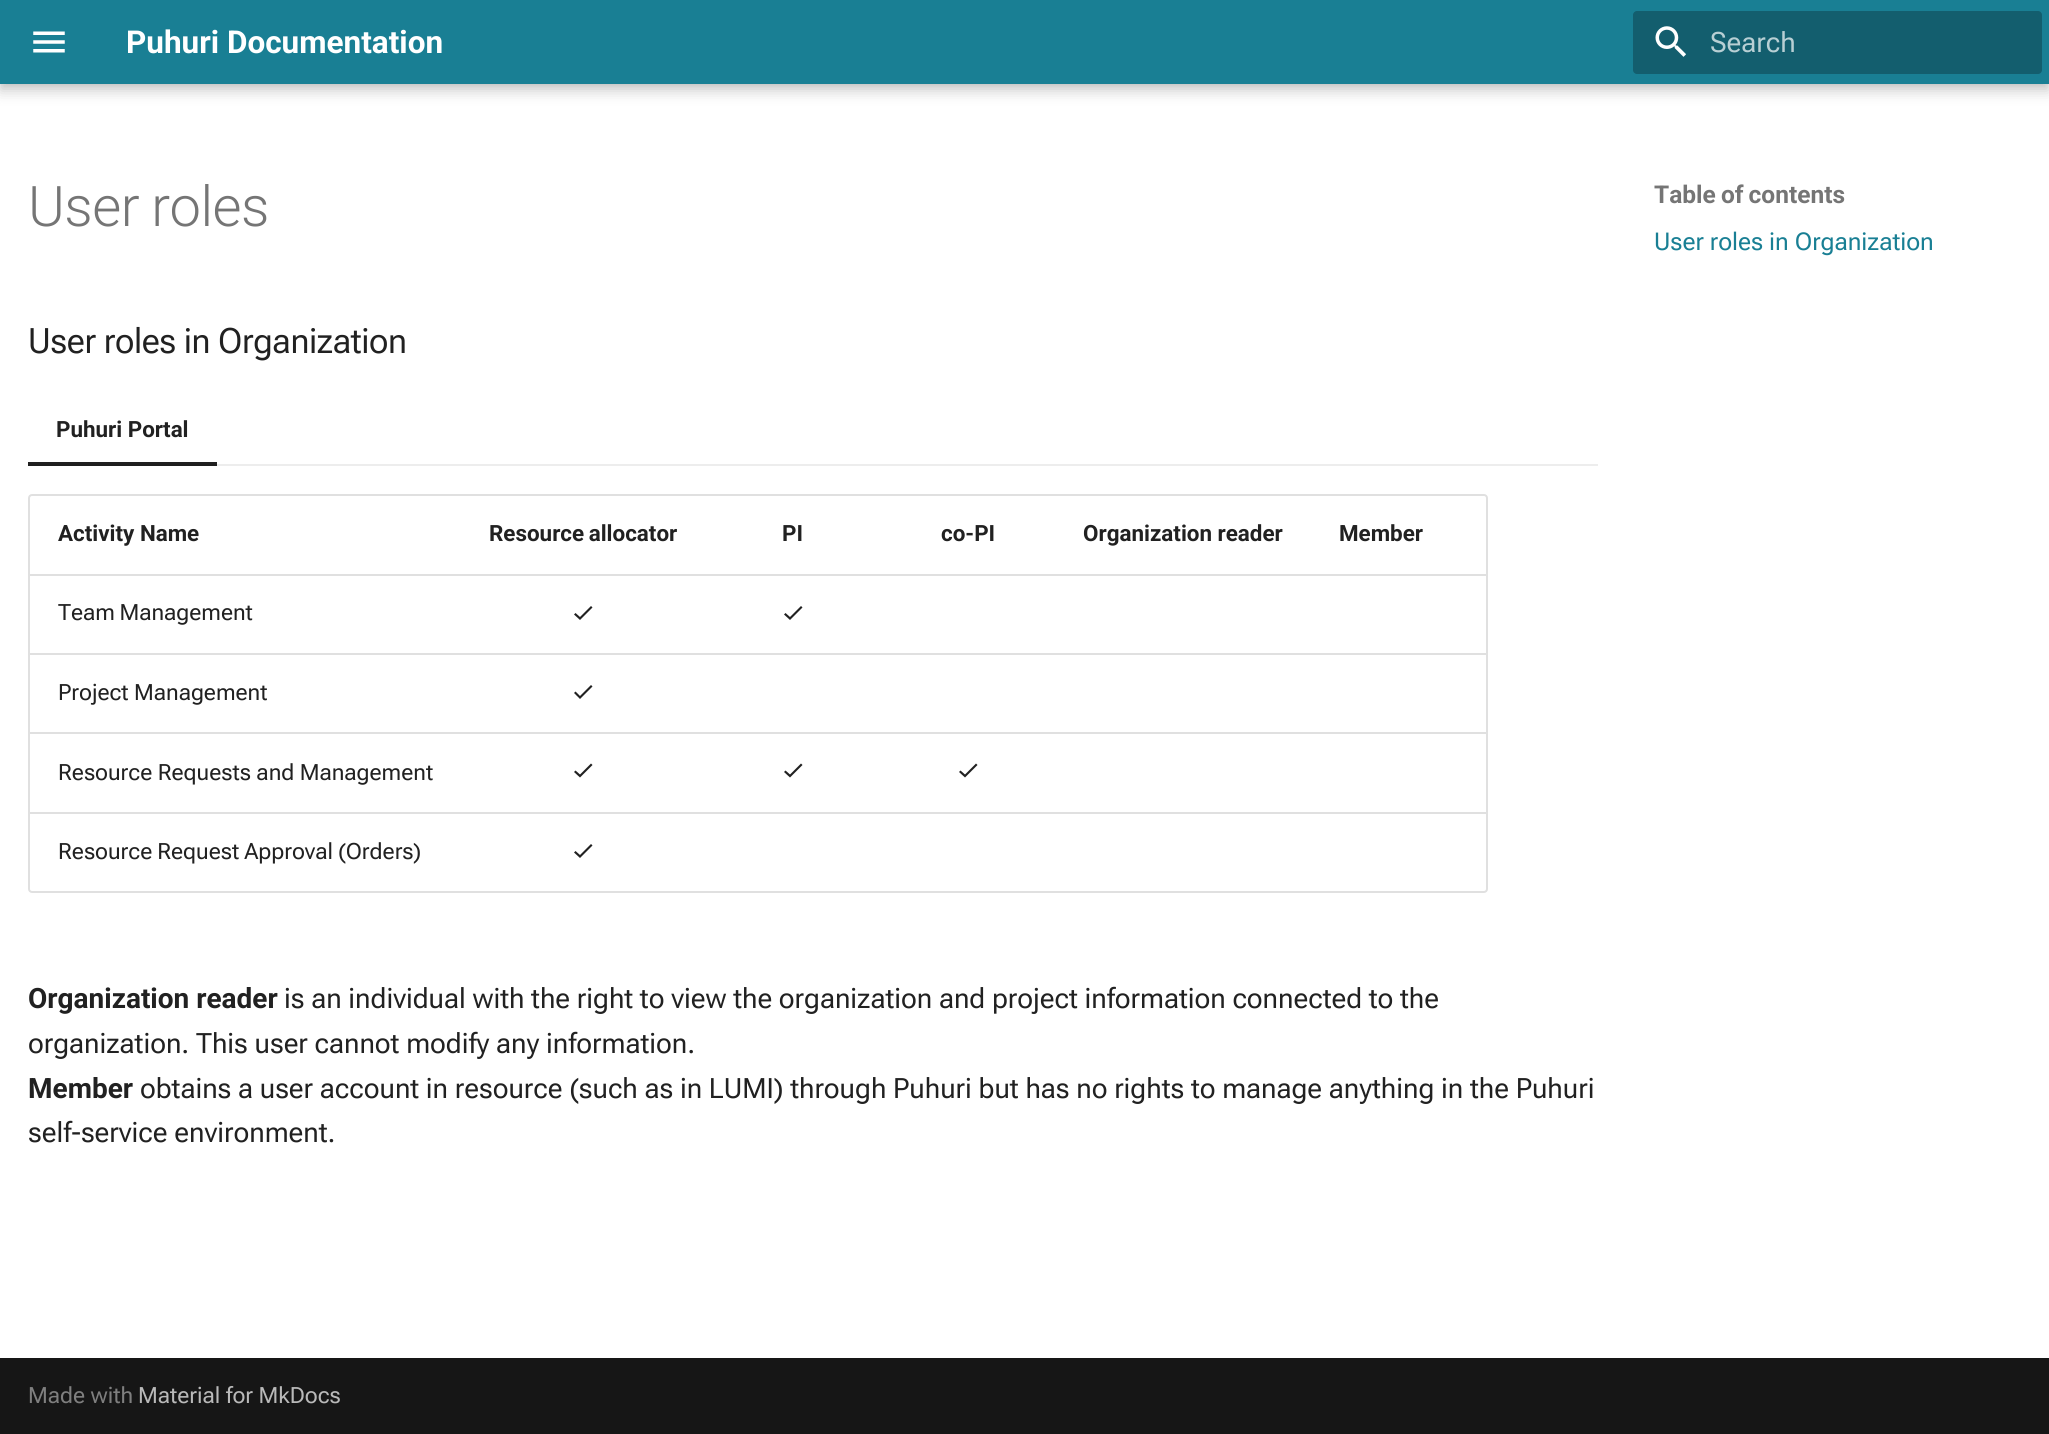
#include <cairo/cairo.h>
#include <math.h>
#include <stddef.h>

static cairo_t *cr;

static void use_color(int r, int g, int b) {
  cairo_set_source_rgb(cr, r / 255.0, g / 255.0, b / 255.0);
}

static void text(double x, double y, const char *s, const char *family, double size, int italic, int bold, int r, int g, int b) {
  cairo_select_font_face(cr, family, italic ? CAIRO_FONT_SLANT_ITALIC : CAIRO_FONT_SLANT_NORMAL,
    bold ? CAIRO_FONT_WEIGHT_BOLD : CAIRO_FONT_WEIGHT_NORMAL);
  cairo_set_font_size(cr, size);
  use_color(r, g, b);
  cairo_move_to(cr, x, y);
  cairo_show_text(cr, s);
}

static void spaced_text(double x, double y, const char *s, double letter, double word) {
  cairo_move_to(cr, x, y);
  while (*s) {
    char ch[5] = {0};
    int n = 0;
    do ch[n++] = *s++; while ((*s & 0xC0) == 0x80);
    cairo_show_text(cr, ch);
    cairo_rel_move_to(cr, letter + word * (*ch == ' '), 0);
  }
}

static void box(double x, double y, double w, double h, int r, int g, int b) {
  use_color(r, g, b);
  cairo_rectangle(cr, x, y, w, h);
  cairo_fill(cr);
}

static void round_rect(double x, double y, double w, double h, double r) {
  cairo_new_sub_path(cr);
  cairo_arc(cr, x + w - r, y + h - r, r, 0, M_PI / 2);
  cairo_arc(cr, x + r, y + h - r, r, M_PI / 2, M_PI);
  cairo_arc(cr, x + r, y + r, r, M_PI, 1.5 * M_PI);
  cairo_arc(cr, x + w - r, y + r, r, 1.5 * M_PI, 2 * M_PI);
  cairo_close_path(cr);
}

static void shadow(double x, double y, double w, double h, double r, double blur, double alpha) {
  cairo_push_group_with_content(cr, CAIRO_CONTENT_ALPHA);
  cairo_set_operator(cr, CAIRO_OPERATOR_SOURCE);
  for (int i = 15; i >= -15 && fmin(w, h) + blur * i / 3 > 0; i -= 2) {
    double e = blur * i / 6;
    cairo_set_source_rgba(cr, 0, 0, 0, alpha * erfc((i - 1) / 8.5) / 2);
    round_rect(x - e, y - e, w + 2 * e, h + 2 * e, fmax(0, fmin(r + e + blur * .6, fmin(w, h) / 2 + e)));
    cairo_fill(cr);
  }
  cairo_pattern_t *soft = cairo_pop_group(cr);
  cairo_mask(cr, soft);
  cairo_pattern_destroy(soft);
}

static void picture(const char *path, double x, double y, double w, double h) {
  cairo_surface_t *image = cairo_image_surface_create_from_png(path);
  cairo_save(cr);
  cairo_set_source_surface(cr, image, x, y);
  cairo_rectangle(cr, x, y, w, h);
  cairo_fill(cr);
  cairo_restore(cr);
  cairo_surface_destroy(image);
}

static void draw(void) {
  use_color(255, 255, 255);
  cairo_paint(cr);
  box(28, 462, 189, 2, 33, 33, 33);
  use_color(0, 0, 0);
  shadow(0, 7, 2049, 84, 0, 7, 0.2);
  shadow(0, 0, 2049, 84, 0, 3.5, 0.1);
  box(0, 0, 2049, 84, 25, 127, 148);
  picture("img_01.png", 33, 31, 32, 22);
  use_color(19, 94, 110);
  round_rect(1633, 11, 409, 63, 4);
  cairo_fill(cr);
  picture("img_02.png", 1655, 26, 31, 31);
  box(217, 464, 1381, 2, 237, 237, 237);
  box(28, 464, 189, 2, 31, 31, 31);
  round_rect(29, 495, 1458, 397, 3);
  use_color(224, 224, 224);
  cairo_stroke(cr);
  box(30, 574, 1456, 2, 224, 224, 224);
  use_color(33, 33, 33);
  cairo_new_path(cr);
  cairo_move_to(cr, 592.5, 607.5);
  cairo_line_to(cr, 580, 620);
  cairo_line_to(cr, 574, 614.5);
  cairo_line_to(cr, 575.5, 613);
  cairo_line_to(cr, 580, 617);
  cairo_line_to(cr, 591, 606);
  cairo_close_path(cr);
  cairo_fill(cr);
  cairo_new_path(cr);
  cairo_move_to(cr, 802.5, 607.5);
  cairo_line_to(cr, 790, 620);
  cairo_line_to(cr, 784, 614.5);
  cairo_line_to(cr, 785.5, 613);
  cairo_line_to(cr, 790, 617);
  cairo_line_to(cr, 801, 606);
  cairo_close_path(cr);
  cairo_fill(cr);
  box(30, 653, 1456, 2, 224, 224, 224);
  use_color(33, 33, 33);
  cairo_new_path(cr);
  cairo_move_to(cr, 592.5, 686.5);
  cairo_line_to(cr, 580, 699);
  cairo_line_to(cr, 574, 693);
  cairo_line_to(cr, 575.5, 691.5);
  cairo_line_to(cr, 580, 696);
  cairo_line_to(cr, 591, 685);
  cairo_close_path(cr);
  cairo_fill(cr);
  box(30, 732, 1456, 2, 224, 224, 224);
  use_color(33, 33, 33);
  cairo_new_path(cr);
  cairo_move_to(cr, 592.5, 765);
  cairo_line_to(cr, 580, 777.5);
  cairo_line_to(cr, 574, 772);
  cairo_line_to(cr, 575.5, 770.5);
  cairo_line_to(cr, 580, 774.5);
  cairo_line_to(cr, 591, 763.5);
  cairo_close_path(cr);
  cairo_fill(cr);
  cairo_new_path(cr);
  cairo_move_to(cr, 802.5, 765);
  cairo_line_to(cr, 790, 777.5);
  cairo_line_to(cr, 784, 772);
  cairo_line_to(cr, 785.5, 770.5);
  cairo_line_to(cr, 790, 774.5);
  cairo_line_to(cr, 801, 763.5);
  cairo_close_path(cr);
  cairo_fill(cr);
  cairo_new_path(cr);
  cairo_move_to(cr, 977.5, 765);
  cairo_line_to(cr, 965, 777.5);
  cairo_line_to(cr, 959, 772);
  cairo_line_to(cr, 960.5, 770.5);
  cairo_line_to(cr, 965, 774.5);
  cairo_line_to(cr, 976, 763.5);
  cairo_close_path(cr);
  cairo_fill(cr);
  box(30, 812, 1456, 2, 224, 224, 224);
  use_color(33, 33, 33);
  cairo_new_path(cr);
  cairo_move_to(cr, 592.5, 845.5);
  cairo_line_to(cr, 580, 858);
  cairo_line_to(cr, 574, 852.5);
  cairo_line_to(cr, 575.5, 851);
  cairo_line_to(cr, 580, 855);
  cairo_line_to(cr, 591, 844);
  cairo_close_path(cr);
  cairo_fill(cr);
  cairo_save(cr);
  cairo_rectangle(cr, 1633, 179, 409, 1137);
  cairo_clip(cr);
  cairo_set_fill_rule(cr, CAIRO_FILL_RULE_EVEN_ODD);
  cairo_new_path(cr);
  cairo_move_to(cr, 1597, 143);
  cairo_line_to(cr, 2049, 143);
  cairo_line_to(cr, 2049, 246);
  cairo_line_to(cr, 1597, 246);
  cairo_close_path(cr);
  cairo_move_to(cr, 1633, 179);
  cairo_line_to(cr, 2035, 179);
  cairo_line_to(cr, 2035, 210);
  cairo_line_to(cr, 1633, 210);
  cairo_close_path(cr);
  cairo_clip(cr);
  use_color(255, 255, 255);
  shadow(1619, 165, 430, 59, 0, 7, 1);
  cairo_restore(cr);
  box(0, 1358, 2049, 76, 22, 22, 22);
  text(126, 53, "Puhuri Documentation", "Roboto", 31.5, 0, 1, 255, 255, 255);
  text(1710, 52, "Search", "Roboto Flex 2", 28, 0, 0, 184, 207, 212);
  cairo_select_font_face(cr, "Roboto Light", CAIRO_FONT_SLANT_NORMAL, CAIRO_FONT_WEIGHT_NORMAL);
  cairo_set_font_size(cr, 56);
  use_color(117, 117, 117);
  spaced_text(28, 226, "User roles", -0.5, -1);
  cairo_select_font_face(cr, "Roboto Flex", CAIRO_FONT_SLANT_NORMAL, CAIRO_FONT_WEIGHT_NORMAL);
  cairo_set_font_size(cr, 35);
  use_color(33, 33, 33);
  spaced_text(28, 353, "User roles in Organization", -0.35, 0);
  text(56, 437, "Puhuri Portal", "Roboto", 22.4, 0, 1, 33, 33, 33);
  text(58, 541, "Activity Name", "Roboto", 22.4, 0, 1, 33, 33, 33);
  spaced_text(489, 541, "Resource allocator", 0, -1);
  text(782, 541, "PI", "Roboto", 22.4, 0, 1, 33, 33, 33);
  text(941, 541, "co-PI", "Roboto", 22.4, 0, 1, 33, 33, 33);
  text(1083, 541, "Organization reader", "Roboto", 22.4, 0, 1, 33, 33, 33);
  text(1339, 541, "Member", "Roboto", 22.4, 0, 1, 33, 33, 33);
  cairo_select_font_face(cr, "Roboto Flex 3", CAIRO_FONT_SLANT_NORMAL, CAIRO_FONT_WEIGHT_NORMAL);
  spaced_text(58, 620, "Team Management", 0, -1);
  text(58, 700, "Project Management", "Roboto Flex 3", 22.4, 0, 0, 33, 33, 33);
  text(58, 780, "Resource Requests and Management", "Roboto Flex 3", 22.4, 0, 0, 33, 33, 33);
  spaced_text(58, 859, "Resource Request Approval (Orders)", 0, -0.5);
  text(28, 1008, "Organization reader", "Roboto", 28, 0, 1, 33, 33, 33);
  text(284, 1008, "is an individual with the right to view the organization and project information connected to the", "Roboto Flex 2", 28, 0, 0, 33, 33, 33);
  text(28, 1053, "organization. This user cannot modify any information.", "Roboto Flex 2", 28, 0, 0, 33, 33, 33);
  text(28, 1098, "Member", "Roboto", 28, 0, 1, 33, 33, 33);
  text(140, 1098, "obtains a user account in resource (such as in LUMI) through Puhuri but has no rights to manage anything in the Puhuri", "Roboto Flex 2", 28, 0, 0, 33, 33, 33);
  text(28, 1142, "self-service environment.", "Roboto Flex 2", 28, 0, 0, 33, 33, 33);
  cairo_select_font_face(cr, "Roboto", CAIRO_FONT_SLANT_NORMAL, CAIRO_FONT_WEIGHT_BOLD);
  cairo_set_font_size(cr, 24.5);
  use_color(117, 117, 117);
  spaced_text(1654, 203, "Table of contents", 0, -1);
  text(1654, 250, "User roles in Organization", "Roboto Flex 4", 24.5, 0, 0, 25, 127, 148);
  text(28, 1403, "Made with", "Roboto Flex 3", 22.4, 0, 0, 127, 127, 127);
  text(138, 1403, "Material for MkDocs", "Roboto Flex 3", 22.4, 0, 0, 185, 185, 185);
}

int main(void) {
  cairo_surface_t *surface = cairo_image_surface_create(CAIRO_FORMAT_RGB24, 2049, 1434);
  cr = cairo_create(surface);
  cairo_font_options_t *options = cairo_font_options_create();
  cairo_font_options_set_hint_metrics(options, CAIRO_HINT_METRICS_OFF);
  cairo_font_options_set_hint_style(options, CAIRO_HINT_STYLE_NONE);
  cairo_set_font_options(cr, options);
  cairo_set_miter_limit(cr, 4);
  draw();
  cairo_surface_write_to_png(surface, "out.png");
  cairo_font_options_destroy(options);
  cairo_destroy(cr);
  cairo_surface_destroy(surface);
  return 0;
}
